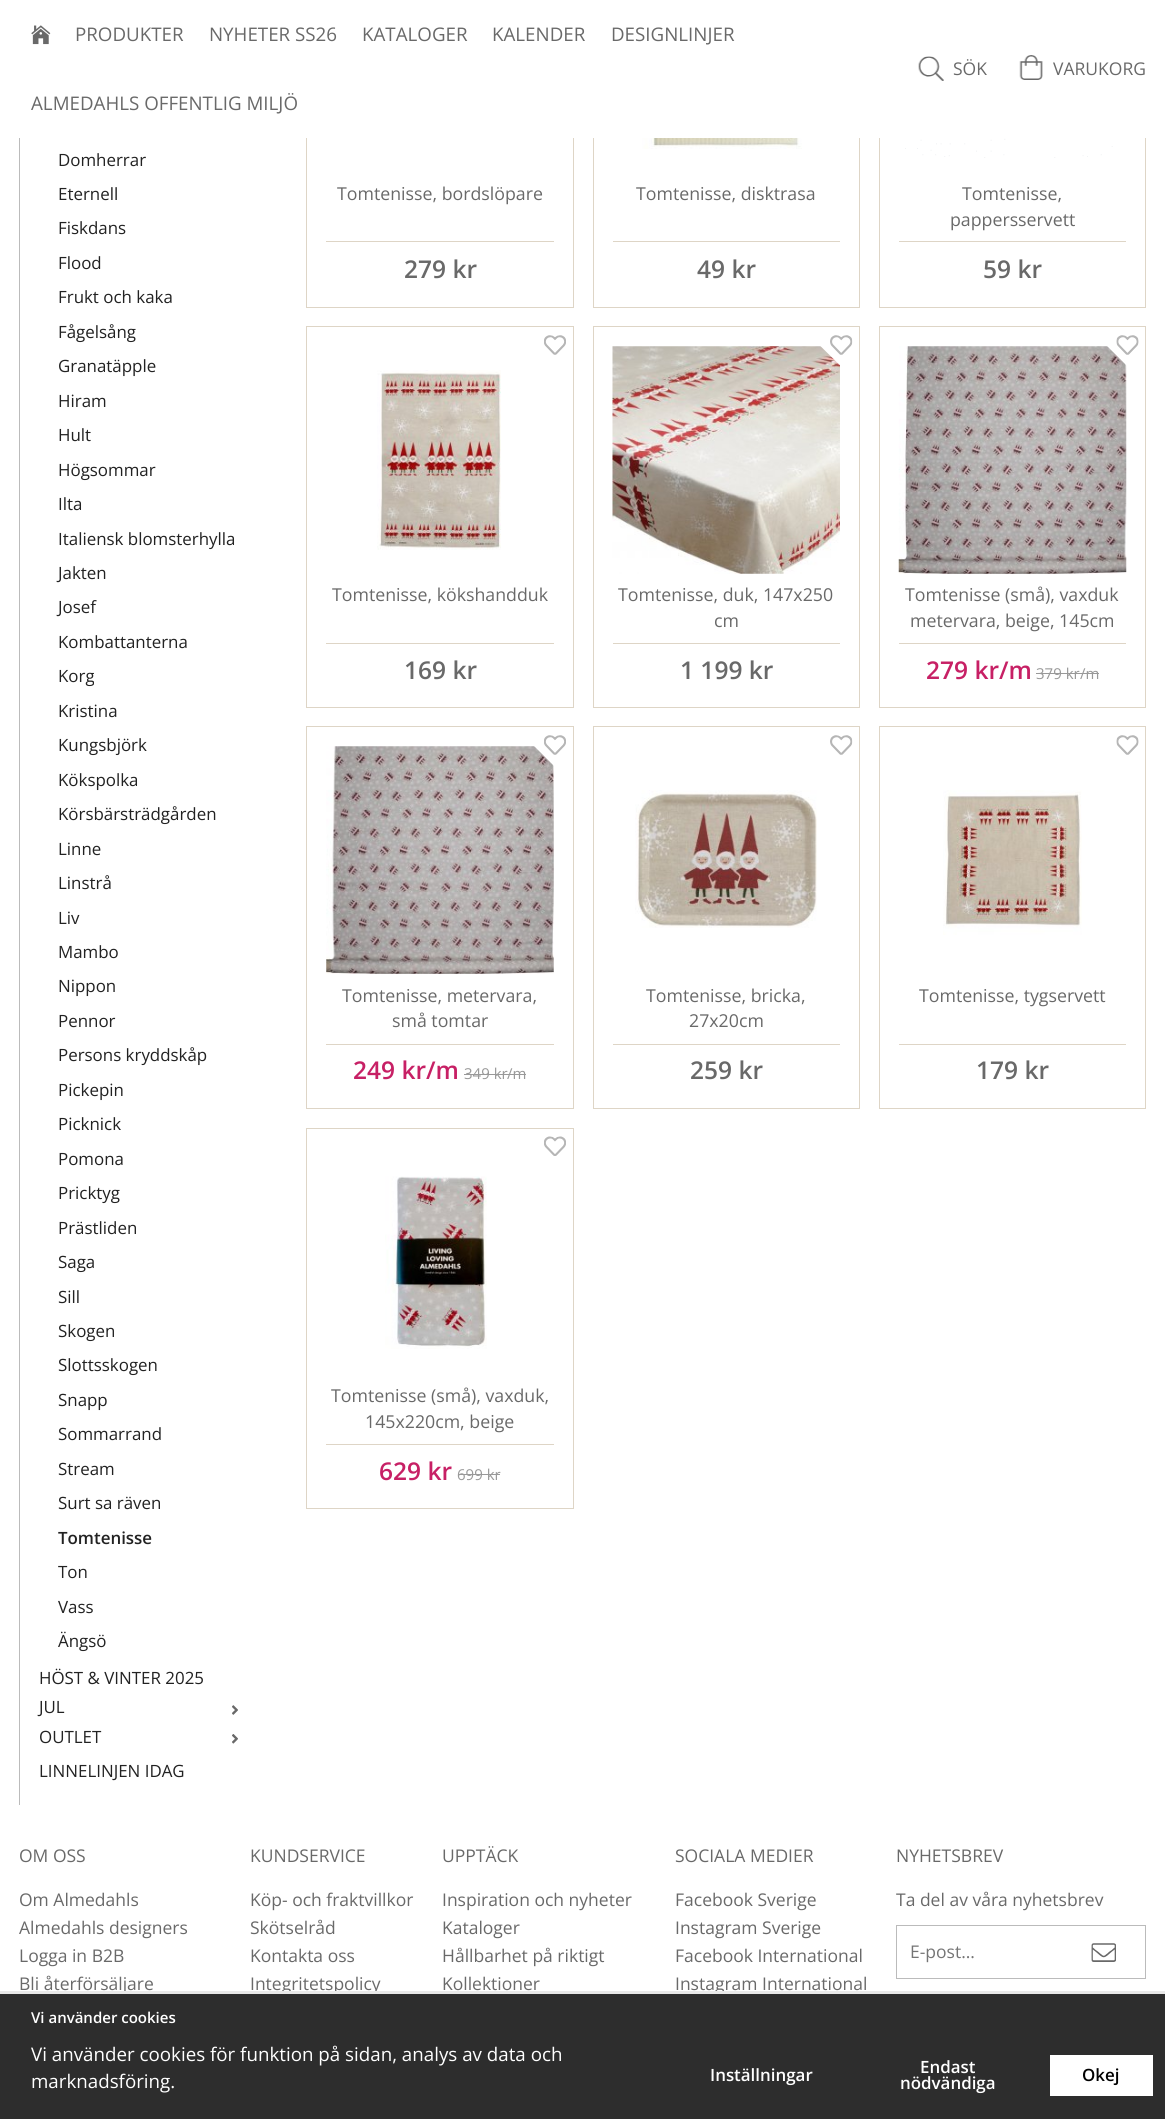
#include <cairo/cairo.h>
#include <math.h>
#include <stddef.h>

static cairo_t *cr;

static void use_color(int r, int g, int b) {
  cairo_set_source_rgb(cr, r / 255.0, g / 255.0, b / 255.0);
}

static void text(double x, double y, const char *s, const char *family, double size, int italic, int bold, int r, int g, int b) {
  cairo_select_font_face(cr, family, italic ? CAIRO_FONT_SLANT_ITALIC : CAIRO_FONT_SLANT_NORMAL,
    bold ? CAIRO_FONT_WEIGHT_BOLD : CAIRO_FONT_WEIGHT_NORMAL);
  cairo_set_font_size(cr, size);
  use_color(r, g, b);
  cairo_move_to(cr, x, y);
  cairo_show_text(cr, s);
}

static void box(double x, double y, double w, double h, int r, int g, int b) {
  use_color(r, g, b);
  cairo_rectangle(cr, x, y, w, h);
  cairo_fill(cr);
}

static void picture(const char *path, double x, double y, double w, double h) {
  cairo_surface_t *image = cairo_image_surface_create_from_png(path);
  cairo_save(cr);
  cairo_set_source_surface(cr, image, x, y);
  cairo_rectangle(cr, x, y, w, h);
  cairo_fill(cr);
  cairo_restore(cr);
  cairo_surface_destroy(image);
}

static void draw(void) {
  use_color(255, 255, 255);
  cairo_paint(cr);
  cairo_rectangle(cr, 306.5, -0.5, 267, 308);
  use_color(222, 213, 198);
  cairo_set_line_width(cr, 1);
  cairo_stroke(cr);
  cairo_rectangle(cr, 593.5, -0.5, 266, 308);
  cairo_stroke(cr);
  cairo_rectangle(cr, 879.5, -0.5, 266, 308);
  cairo_stroke(cr);
  box(306, 0, 840, 138, 255, 255, 255);
  picture("img_01.png", 31, 25, 20, 20);
  picture("img_02.png", 918, 56, 26, 25);
  picture("img_03.png", 1019, 55, 24, 25);
  box(19, 138, 1, 1667, 187, 187, 187);
  picture("img_04.png", 232, 1705, 6, 10);
  picture("img_05.png", 232, 1734, 6, 10);
  box(326, 241, 228, 1, 222, 213, 198);
  picture("img_06.png", 642, 138, 160, 11);
  box(613, 241, 227, 1, 222, 213, 198);
  picture("img_07.png", 905, 138, 208, 20);
  box(899, 241, 227, 1, 222, 213, 198);
  cairo_rectangle(cr, 306.5, 326.5, 267, 381);
  cairo_stroke(cr);
  picture("img_08.png", 544, 335, 22, 20);
  picture("img_09.png", 377, 370, 124, 180);
  box(326, 643, 228, 1, 222, 213, 198);
  cairo_rectangle(cr, 593.5, 326.5, 266, 381);
  cairo_stroke(cr);
  picture("img_11.png", 612, 346, 228, 228);
  use_color(255, 255, 255);
  cairo_new_path(cr);
  cairo_move_to(cr, 859, 328);
  cairo_line_to(cr, 859, 384);
  cairo_line_to(cr, 802, 328);
  cairo_close_path(cr);
  cairo_fill(cr);
  picture("img_10.png", 830, 335, 23, 20);
  box(613, 643, 227, 1, 222, 213, 198);
  cairo_rectangle(cr, 879.5, 326.5, 266, 381);
  cairo_stroke(cr);
  picture("img_13.png", 898, 346, 229, 228);
  use_color(255, 255, 255);
  cairo_new_path(cr);
  cairo_move_to(cr, 1145, 328);
  cairo_line_to(cr, 1145, 384);
  cairo_line_to(cr, 1089, 328);
  cairo_close_path(cr);
  cairo_fill(cr);
  picture("img_12.png", 1116, 335, 23, 20);
  box(899, 643, 227, 1, 222, 213, 198);
  box(1036, 673, 44, 1, 153, 153, 153);
  box(1080, 673, 19, 1, 153, 153, 153);
  cairo_rectangle(cr, 306.5, 726.5, 267, 382);
  use_color(222, 213, 198);
  cairo_stroke(cr);
  picture("img_14.png", 326, 746, 228, 228);
  use_color(255, 255, 255);
  cairo_new_path(cr);
  cairo_move_to(cr, 572, 728);
  cairo_line_to(cr, 572, 784);
  cairo_line_to(cr, 516, 728);
  cairo_close_path(cr);
  cairo_fill(cr);
  picture("img_08.png", 544, 735, 22, 20);
  box(326, 1044, 228, 1, 222, 213, 198);
  box(464, 1074, 44, 1, 153, 153, 153);
  box(508, 1074, 18, 1, 153, 153, 153);
  cairo_rectangle(cr, 593.5, 726.5, 266, 382);
  use_color(222, 213, 198);
  cairo_stroke(cr);
  picture("img_10.png", 830, 735, 23, 20);
  picture("img_15.png", 635, 790, 182, 138);
  box(613, 1044, 227, 1, 222, 213, 198);
  cairo_rectangle(cr, 879.5, 726.5, 266, 382);
  cairo_stroke(cr);
  picture("img_12.png", 1116, 735, 23, 20);
  picture("img_16.png", 943, 790, 139, 145);
  box(899, 1044, 227, 1, 222, 213, 198);
  cairo_rectangle(cr, 306.5, 1128.5, 267, 380);
  cairo_stroke(cr);
  picture("img_17.png", 544, 1136, 22, 20);
  picture("img_18.png", 385, 1176, 102, 173);
  box(326, 1444, 228, 1, 222, 213, 198);
  box(458, 1474, 42, 1, 153, 153, 153);
  cairo_rectangle(cr, 896.5, 1925.5, 249, 53);
  use_color(187, 187, 187);
  cairo_stroke(cr);
  picture("img_19.png", 1091, 1943, 25, 19);
  text(75, 41, "PRODUKTER", "Open Sans", 18.75, 0, 0, 105, 105, 105);
  text(209, 41, "NYHETER SS26", "Open Sans", 18.75, 0, 0, 105, 105, 105);
  text(362, 41, "KATALOGER", "Open Sans", 18.75, 0, 0, 105, 105, 105);
  text(492, 41, "KALENDER", "Open Sans", 18.75, 0, 0, 105, 105, 105);
  text(611, 41, "DESIGNLINJER", "Open Sans", 18.75, 0, 0, 105, 105, 105);
  text(31, 110, "ALMEDAHLS OFFENTLIG MILJÖ", "Open Sans", 18.75, 0, 0, 105, 105, 105);
  text(953, 75, "SÖK", "Open Sans", 17.5, 0, 0, 105, 105, 105);
  text(1053, 75, "VARUKORG", "Open Sans", 17.5, 0, 0, 105, 105, 105);
  text(58, 166, "Domherrar", "Open Sans", 16.9, 0, 0, 34, 34, 34);
  text(58, 200, "Eternell", "Open Sans", 16.9, 0, 0, 34, 34, 34);
  text(58, 234, "Fiskdans", "Open Sans", 16.9, 0, 0, 34, 34, 34);
  text(58, 269, "Flood", "Open Sans", 16.9, 0, 0, 34, 34, 34);
  text(58, 303, "Frukt och kaka", "Open Sans", 16.9, 0, 0, 34, 34, 34);
  text(58, 338, "Fågelsång", "Open Sans", 16.9, 0, 0, 34, 34, 34);
  text(58, 372, "Granatäpple", "Open Sans", 16.9, 0, 0, 34, 34, 34);
  text(58, 407, "Hiram", "Open Sans", 16.9, 0, 0, 34, 34, 34);
  text(58, 441, "Hult", "Open Sans", 16.9, 0, 0, 34, 34, 34);
  text(58, 476, "Högsommar", "Open Sans", 16.9, 0, 0, 34, 34, 34);
  text(58, 510, "Ilta", "Open Sans", 16.9, 0, 0, 34, 34, 34);
  text(58, 545, "Italiensk blomsterhylla", "Open Sans", 16.9, 0, 0, 34, 34, 34);
  text(58, 579, "Jakten", "Open Sans", 16.9, 0, 0, 34, 34, 34);
  text(58, 613, "Josef", "Open Sans", 16.9, 0, 0, 34, 34, 34);
  text(58, 648, "Kombattanterna", "Open Sans", 16.9, 0, 0, 34, 34, 34);
  text(58, 682, "Korg", "Open Sans", 16.9, 0, 0, 34, 34, 34);
  text(58, 717, "Kristina", "Open Sans", 16.9, 0, 0, 34, 34, 34);
  text(58, 751, "Kungsbjörk", "Open Sans", 16.9, 0, 0, 34, 34, 34);
  text(58, 786, "Kökspolka", "Open Sans", 16.9, 0, 0, 34, 34, 34);
  text(58, 820, "Körsbärsträdgården", "Open Sans", 16.9, 0, 0, 34, 34, 34);
  text(58, 855, "Linne", "Open Sans", 16.9, 0, 0, 34, 34, 34);
  text(58, 889, "Linstrå", "Open Sans", 16.9, 0, 0, 34, 34, 34);
  text(58, 924, "Liv", "Open Sans", 16.9, 0, 0, 34, 34, 34);
  text(58, 958, "Mambo", "Open Sans", 16.9, 0, 0, 34, 34, 34);
  text(58, 992, "Nippon", "Open Sans", 16.9, 0, 0, 34, 34, 34);
  text(58, 1027, "Pennor", "Open Sans", 16.9, 0, 0, 34, 34, 34);
  text(58, 1061, "Persons kryddskåp", "Open Sans", 16.9, 0, 0, 34, 34, 34);
  text(58, 1096, "Pickepin", "Open Sans", 16.9, 0, 0, 34, 34, 34);
  text(58, 1130, "Picknick", "Open Sans", 16.9, 0, 0, 34, 34, 34);
  text(58, 1165, "Pomona", "Open Sans", 16.9, 0, 0, 34, 34, 34);
  text(58, 1199, "Pricktyg", "Open Sans", 16.9, 0, 0, 34, 34, 34);
  text(58, 1234, "Prästliden", "Open Sans", 16.9, 0, 0, 34, 34, 34);
  text(58, 1268, "Saga", "Open Sans", 16.9, 0, 0, 34, 34, 34);
  text(58, 1303, "Sill", "Open Sans", 16.9, 0, 0, 34, 34, 34);
  text(58, 1337, "Skogen", "Open Sans", 16.9, 0, 0, 34, 34, 34);
  text(58, 1371, "Slottsskogen", "Open Sans", 16.9, 0, 0, 34, 34, 34);
  text(58, 1406, "Snapp", "Open Sans", 16.9, 0, 0, 34, 34, 34);
  text(58, 1440, "Sommarrand", "Open Sans", 16.9, 0, 0, 34, 34, 34);
  text(58, 1475, "Stream", "Open Sans", 16.9, 0, 0, 34, 34, 34);
  text(58, 1509, "Surt sa räven", "Open Sans", 16.9, 0, 0, 34, 34, 34);
  text(58, 1544, "Tomtenisse", "Open Sans SemiBold", 16.9, 0, 0, 34, 34, 34);
  text(58, 1578, "Ton", "Open Sans", 16.9, 0, 0, 34, 34, 34);
  text(58, 1613, "Vass", "Open Sans", 16.9, 0, 0, 34, 34, 34);
  text(58, 1647, "Ängsö", "Open Sans", 16.9, 0, 0, 34, 34, 34);
  text(39, 1684, "HÖST & VINTER 2025", "Open Sans", 16.9, 0, 0, 34, 34, 34);
  text(39, 1713, "JUL", "Open Sans", 16.9, 0, 0, 34, 34, 34);
  text(39, 1743, "OUTLET", "Open Sans", 16.9, 0, 0, 34, 34, 34);
  text(39, 1777, "LINNELINJEN IDAG", "Open Sans", 16.9, 0, 0, 34, 34, 34);
  text(337, 200, "Tomtenisse, bordslöpare", "Open Sans", 17.75, 0, 0, 105, 105, 105);
  text(404, 278, "279 kr", "Open Sans SemiBold", 24.5, 0, 0, 105, 105, 105);
  text(636, 200, "Tomtenisse, disktrasa", "Open Sans", 17.75, 0, 0, 105, 105, 105);
  text(697, 278, "49 kr", "Open Sans SemiBold", 24.5, 0, 0, 105, 105, 105);
  text(962, 200, "Tomtenisse,", "Open Sans", 17.75, 0, 0, 105, 105, 105);
  text(950, 226, "pappersservett", "Open Sans", 17.75, 0, 0, 105, 105, 105);
  text(983, 278, "59 kr", "Open Sans SemiBold", 24.5, 0, 0, 105, 105, 105);
  text(332, 601, "Tomtenisse, kökshandduk", "Open Sans", 17.75, 0, 0, 105, 105, 105);
  text(404, 679, "169 kr", "Open Sans SemiBold", 24.5, 0, 0, 105, 105, 105);
  text(618, 601, "Tomtenisse, duk, 147x250", "Open Sans", 17.75, 0, 0, 105, 105, 105);
  text(714, 627, "cm", "Open Sans", 17.75, 0, 0, 105, 105, 105);
  text(680, 679, "1 199 kr", "Open Sans SemiBold", 24.5, 0, 0, 105, 105, 105);
  text(905, 601, "Tomtenisse (små), vaxduk", "Open Sans", 17.75, 0, 0, 105, 105, 105);
  text(910, 627, "metervara, beige, 145cm", "Open Sans", 17.75, 0, 0, 105, 105, 105);
  text(926, 679, "279 kr/m", "Open Sans SemiBold", 24.5, 0, 0, 199, 32, 101);
  text(1036, 679, "379 kr", "Open Sans", 15, 0, 0, 153, 153, 153);
  text(1080, 679, "/m", "Open Sans", 15, 0, 0, 153, 153, 153);
  text(342, 1002, "Tomtenisse, metervara,", "Open Sans", 17.75, 0, 0, 105, 105, 105);
  text(392, 1027, "små tomtar", "Open Sans", 17.75, 0, 0, 105, 105, 105);
  text(353, 1079, "249 kr/m", "Open Sans SemiBold", 24.5, 0, 0, 199, 32, 101);
  text(464, 1079, "349 kr", "Open Sans", 15, 0, 0, 153, 153, 153);
  text(507, 1079, "/m", "Open Sans", 15, 0, 0, 153, 153, 153);
  text(646, 1002, "Tomtenisse, bricka,", "Open Sans", 17.75, 0, 0, 105, 105, 105);
  text(689, 1027, "27x20cm", "Open Sans", 17.75, 0, 0, 105, 105, 105);
  text(690, 1079, "259 kr", "Open Sans SemiBold", 24.5, 0, 0, 105, 105, 105);
  text(919, 1002, "Tomtenisse, tygservett", "Open Sans", 17.75, 0, 0, 105, 105, 105);
  text(976, 1079, "179 kr", "Open Sans SemiBold", 24.5, 0, 0, 105, 105, 105);
  text(331, 1402, "Tomtenisse (små), vaxduk,", "Open Sans", 17.75, 0, 0, 105, 105, 105);
  text(365, 1428, "145x220cm, beige", "Open Sans", 17.75, 0, 0, 105, 105, 105);
  text(379, 1480, "629 kr", "Open Sans SemiBold", 24.5, 0, 0, 199, 32, 101);
  text(457, 1480, "699 kr", "Open Sans", 15, 0, 0, 153, 153, 153);
  text(19, 1862, "OM OSS", "Open Sans", 17.5, 0, 0, 105, 105, 105);
  text(19, 1906, "Om Almedahls", "Open Sans", 17.5, 0, 0, 105, 105, 105);
  text(19, 1934, "Almedahls designers", "Open Sans", 17.5, 0, 0, 105, 105, 105);
  text(19, 1962, "Logga in B2B", "Open Sans", 17.5, 0, 0, 105, 105, 105);
  text(19, 1990, "Bli återförsäljare", "Open Sans", 17.5, 0, 0, 105, 105, 105);
  text(250, 1862, "KUNDSERVICE", "Open Sans", 17.5, 0, 0, 105, 105, 105);
  text(250, 1906, "Köp- och fraktvillkor", "Open Sans", 17.5, 0, 0, 105, 105, 105);
  text(250, 1934, "Skötselråd", "Open Sans", 17.5, 0, 0, 105, 105, 105);
  text(250, 1962, "Kontakta oss", "Open Sans", 17.5, 0, 0, 105, 105, 105);
  text(250, 1990, "Integritetspolicy", "Open Sans", 17.5, 0, 0, 105, 105, 105);
  text(442, 1862, "UPPTÄCK", "Open Sans", 17.5, 0, 0, 105, 105, 105);
  text(442, 1906, "Inspiration och nyheter", "Open Sans", 17.5, 0, 0, 105, 105, 105);
  text(442, 1934, "Kataloger", "Open Sans", 17.5, 0, 0, 105, 105, 105);
  text(442, 1962, "Hållbarhet på riktigt", "Open Sans", 17.5, 0, 0, 105, 105, 105);
  text(442, 1990, "Kollektioner", "Open Sans", 17.5, 0, 0, 105, 105, 105);
  text(675, 1862, "SOCIALA MEDIER", "Open Sans", 17.5, 0, 0, 105, 105, 105);
  text(675, 1906, "Facebook Sverige", "Open Sans", 17.5, 0, 0, 105, 105, 105);
  text(675, 1934, "Instagram Sverige", "Open Sans", 17.5, 0, 0, 105, 105, 105);
  text(675, 1962, "Facebook International", "Open Sans", 17.5, 0, 0, 105, 105, 105);
  text(675, 1990, "Instagram International", "Open Sans", 17.5, 0, 0, 105, 105, 105);
  text(896, 1862, "NYHETSBREV", "Open Sans", 17.5, 0, 0, 105, 105, 105);
  text(896, 1906, "Ta del av våra nyhetsbrev", "Open Sans", 17.5, 0, 0, 105, 105, 105);
  text(910, 1958, "E-post...", "Open Sans", 17.5, 0, 0, 117, 117, 117);
  box(0, 1994, 1165, 125, 45, 45, 45);
  box(0, 1991, 1165, 3, 233, 233, 233);
  text(31, 2023, "Vi använder cookies", "Open Sans SemiBold", 15, 0, 0, 255, 255, 255);
  text(31, 2061, "Vi använder cookies för funktion på sidan, analys av data och", "Open Sans", 18.75, 0, 0, 255, 255, 255);
  text(31, 2088, "marknadsföring.", "Open Sans", 18.75, 0, 0, 255, 255, 255);
  text(710, 2081, "Inställningar", "Open Sans SemiBold", 16.9, 0, 0, 255, 255, 255);
  text(920, 2073, "Endast", "Open Sans SemiBold", 16.9, 0, 0, 255, 255, 255);
  text(900, 2089, "nödvändiga", "Open Sans SemiBold", 16.9, 0, 0, 255, 255, 255);
  box(1050, 2055, 103, 41, 255, 255, 255);
  text(1082, 2081, "Okej", "Open Sans SemiBold", 16.9, 0, 0, 0, 0, 0);
}

int main(void) {
  cairo_surface_t *surface = cairo_image_surface_create(CAIRO_FORMAT_RGB24, 1165, 2119);
  cr = cairo_create(surface);
  cairo_font_options_t *options = cairo_font_options_create();
  cairo_font_options_set_hint_metrics(options, CAIRO_HINT_METRICS_OFF);
  cairo_font_options_set_hint_style(options, CAIRO_HINT_STYLE_NONE);
  cairo_set_font_options(cr, options);
  cairo_set_miter_limit(cr, 4);
  draw();
  cairo_surface_write_to_png(surface, "out.png");
  cairo_font_options_destroy(options);
  cairo_destroy(cr);
  cairo_surface_destroy(surface);
  return 0;
}
